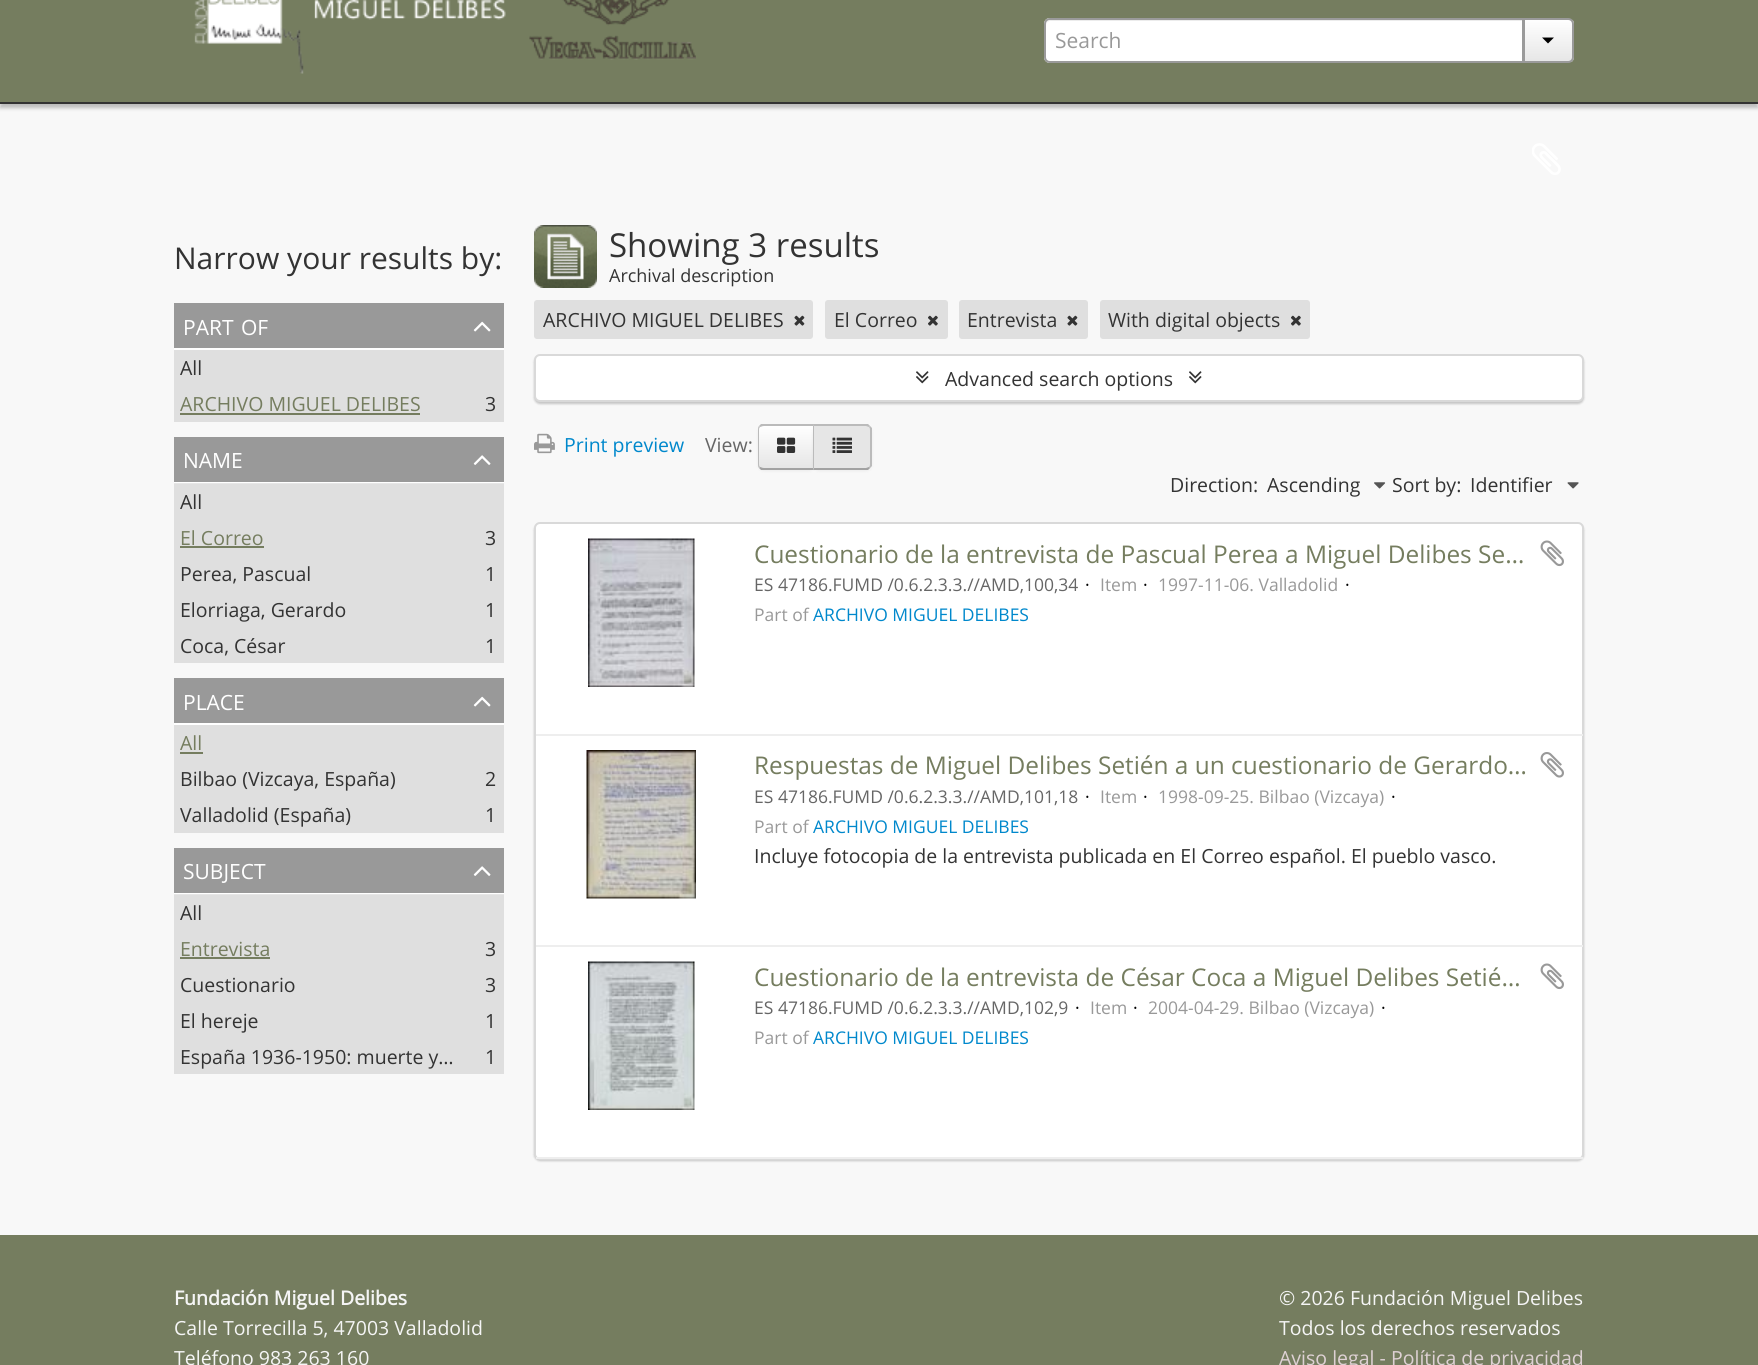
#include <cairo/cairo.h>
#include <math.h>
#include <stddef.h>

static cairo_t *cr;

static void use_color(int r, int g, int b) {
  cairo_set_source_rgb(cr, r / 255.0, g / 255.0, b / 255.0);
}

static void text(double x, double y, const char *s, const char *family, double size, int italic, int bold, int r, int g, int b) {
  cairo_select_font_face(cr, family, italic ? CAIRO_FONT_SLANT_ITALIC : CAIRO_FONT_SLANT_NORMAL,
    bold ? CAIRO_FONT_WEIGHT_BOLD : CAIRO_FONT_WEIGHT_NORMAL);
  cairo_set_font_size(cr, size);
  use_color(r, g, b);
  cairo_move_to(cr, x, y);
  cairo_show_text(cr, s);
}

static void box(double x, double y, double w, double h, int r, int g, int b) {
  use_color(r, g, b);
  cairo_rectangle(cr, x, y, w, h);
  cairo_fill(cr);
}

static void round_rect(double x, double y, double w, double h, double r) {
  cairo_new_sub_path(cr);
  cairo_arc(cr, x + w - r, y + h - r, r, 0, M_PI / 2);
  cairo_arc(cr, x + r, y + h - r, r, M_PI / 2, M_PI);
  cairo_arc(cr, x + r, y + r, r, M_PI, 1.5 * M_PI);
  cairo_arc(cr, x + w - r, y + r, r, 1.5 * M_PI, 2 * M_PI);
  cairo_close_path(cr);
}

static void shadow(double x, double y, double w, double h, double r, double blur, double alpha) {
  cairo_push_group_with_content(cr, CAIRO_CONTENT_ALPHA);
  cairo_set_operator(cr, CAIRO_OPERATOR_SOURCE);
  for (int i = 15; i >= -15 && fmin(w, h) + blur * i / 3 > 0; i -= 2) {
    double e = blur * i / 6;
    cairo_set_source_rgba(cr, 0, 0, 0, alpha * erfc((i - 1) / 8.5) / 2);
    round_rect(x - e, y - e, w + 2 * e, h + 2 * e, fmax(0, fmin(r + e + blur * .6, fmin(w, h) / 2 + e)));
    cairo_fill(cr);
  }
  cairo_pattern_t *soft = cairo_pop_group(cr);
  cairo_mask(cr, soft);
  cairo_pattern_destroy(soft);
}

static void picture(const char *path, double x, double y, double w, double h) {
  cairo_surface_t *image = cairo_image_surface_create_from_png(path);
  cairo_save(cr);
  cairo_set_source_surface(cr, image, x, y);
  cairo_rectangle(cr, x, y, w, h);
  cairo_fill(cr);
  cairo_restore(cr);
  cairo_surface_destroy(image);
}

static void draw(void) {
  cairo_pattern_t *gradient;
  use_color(248, 248, 248);
  cairo_paint(cr);
  box(174, 895, 330, 179, 223, 223, 223);
  box(174, 484, 330, 179, 223, 223, 223);
  use_color(0, 0, 0);
  shadow(0, -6, 1758, 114, 0, 2, 0.25);
  box(0, 0, 1758, 102, 117, 125, 95);
  box(0, 102, 1758, 2, 51, 51, 51);
  picture("img_01.png", 194, 0, 312, 74);
  picture("img_02.png", 529, 0, 167, 60);
  use_color(255, 255, 255);
  cairo_new_path(cr);
  cairo_move_to(cr, 1050, 18);
  cairo_line_to(cr, 1524, 18);
  cairo_line_to(cr, 1524, 63);
  cairo_line_to(cr, 1050, 63);
  cairo_curve_to(cr, 1046.5, 63, 1044, 60.5, 1044, 57);
  cairo_line_to(cr, 1044, 24);
  cairo_curve_to(cr, 1044, 20.5, 1046.5, 18, 1050, 18);
  cairo_close_path(cr);
  cairo_fill(cr);
  use_color(236, 236, 236);
  cairo_new_path(cr);
  cairo_move_to(cr, 1050, 21);
  cairo_line_to(cr, 1522, 21);
  cairo_line_to(cr, 1522, 62);
  cairo_line_to(cr, 1523, 62);
  cairo_line_to(cr, 1523, 20);
  cairo_line_to(cr, 1051, 20);
  cairo_curve_to(cr, 1048, 20, 1046, 22, 1046, 25);
  cairo_line_to(cr, 1046, 26);
  cairo_curve_to(cr, 1046, 23, 1048, 21, 1050, 21);
  cairo_close_path(cr);
  cairo_fill(cr);
  cairo_new_path(cr);
  cairo_move_to(cr, 1050, 19);
  cairo_line_to(cr, 1523, 19);
  cairo_line_to(cr, 1523, 62);
  cairo_line_to(cr, 1050, 62);
  cairo_curve_to(cr, 1047, 62, 1045, 60, 1045, 57);
  cairo_line_to(cr, 1045, 24);
  cairo_curve_to(cr, 1045, 21, 1047, 19, 1050, 19);
  cairo_close_path(cr);
  use_color(154, 154, 154);
  cairo_stroke(cr);
  cairo_save(cr);
  cairo_new_path(cr);
  cairo_move_to(cr, 1523, 18);
  cairo_line_to(cr, 1568, 18);
  cairo_curve_to(cr, 1571.5, 18, 1574, 20.5, 1574, 24);
  cairo_line_to(cr, 1574, 57);
  cairo_curve_to(cr, 1574, 60.5, 1571.5, 63, 1568, 63);
  cairo_line_to(cr, 1523, 63);
  cairo_close_path(cr);
  cairo_clip(cr);
  gradient = cairo_pattern_create_linear(1548, 19, 1548, 62);
  cairo_pattern_add_color_stop_rgba(gradient, 0, 1, 1, 1, 1);
  cairo_pattern_add_color_stop_rgba(gradient, 1, 0.902, 0.902, 0.902, 1);
  cairo_set_source(cr, gradient);
  cairo_pattern_destroy(gradient);
  cairo_rectangle(cr, 1525, 20, 49, 42);
  cairo_fill(cr);
  cairo_restore(cr);
  cairo_new_path(cr);
  cairo_move_to(cr, 1524, 19);
  cairo_line_to(cr, 1568, 19);
  cairo_curve_to(cr, 1571, 19, 1573, 21, 1573, 24);
  cairo_line_to(cr, 1573, 57);
  cairo_curve_to(cr, 1573, 60, 1571, 62, 1568, 62);
  cairo_line_to(cr, 1524, 62);
  cairo_close_path(cr);
  cairo_stroke(cr);
  use_color(0, 0, 0);
  cairo_new_path(cr);
  cairo_move_to(cr, 1542, 37.5);
  cairo_line_to(cr, 1554, 37.5);
  cairo_line_to(cr, 1548, 43.5);
  cairo_close_path(cr);
  cairo_fill(cr);
  picture("img_03.png", 1532, 143, 29, 32);
  box(174, 348, 330, 2, 255, 255, 255);
  box(174, 303, 330, 45, 153, 153, 153);
  picture("img_04.png", 473, 321, 18, 11);
  box(174, 350, 330, 72, 223, 223, 223);
  box(180, 413, 240, 2, 117, 125, 95);
  box(174, 482, 330, 1, 255, 255, 255);
  box(174, 483, 330, 1, 230, 230, 230);
  box(174, 437, 330, 45, 153, 153, 153);
  picture("img_05.png", 473, 455, 18, 10);
  box(180, 546, 84, 2, 117, 125, 95);
  box(174, 723, 330, 2, 255, 255, 255);
  box(174, 678, 330, 45, 153, 153, 153);
  picture("img_04.png", 473, 696, 18, 11);
  box(174, 725, 330, 108, 223, 223, 223);
  box(180, 752, 23, 2, 117, 125, 95);
  box(174, 893, 330, 1, 255, 255, 255);
  box(174, 894, 330, 1, 230, 230, 230);
  box(174, 848, 330, 45, 153, 153, 153);
  picture("img_05.png", 473, 866, 18, 10);
  box(180, 957, 90, 2, 117, 125, 95);
  picture("img_06.png", 534, 225, 63, 63);
  use_color(223, 223, 223);
  round_rect(534, 300, 279, 39, 3);
  cairo_fill(cr);
  picture("img_07.png", 794, 315, 11, 11);
  round_rect(825, 300, 123, 39, 3);
  cairo_fill(cr);
  picture("img_08.png", 928, 315, 10, 11);
  round_rect(959, 300, 129, 39, 3);
  cairo_fill(cr);
  picture("img_07.png", 1067, 315, 11, 11);
  round_rect(1100, 300, 210, 39, 3);
  cairo_fill(cr);
  picture("img_08.png", 1291, 315, 10, 11);
  use_color(0, 0, 0);
  shadow(534, 356, 1050, 48, 6, 1, 0.2);
  use_color(255, 255, 255);
  round_rect(535, 355, 1048, 46, 5);
  cairo_fill_preserve(cr);
  use_color(217, 217, 217);
  cairo_stroke(cr);
  picture("img_09.png", 916, 371, 13, 13);
  picture("img_09.png", 1189, 371, 13, 13);
  picture("img_10.png", 534, 433, 21, 21);
  use_color(0, 0, 0);
  shadow(758, 426, 57, 45, 6, 1.5, 0.05);
  cairo_save(cr);
  cairo_new_path(cr);
  cairo_move_to(cr, 764, 425);
  cairo_line_to(cr, 815, 425);
  cairo_line_to(cr, 815, 470);
  cairo_line_to(cr, 764, 470);
  cairo_curve_to(cr, 760.5, 470, 758, 467.5, 758, 464);
  cairo_line_to(cr, 758, 431);
  cairo_curve_to(cr, 758, 427.5, 760.5, 425, 764, 425);
  cairo_close_path(cr);
  cairo_clip(cr);
  gradient = cairo_pattern_create_linear(786, 426, 786, 468);
  cairo_pattern_add_color_stop_rgba(gradient, 0, 1, 1, 1, 1);
  cairo_pattern_add_color_stop_rgba(gradient, 1, 0.902, 0.902, 0.902, 1);
  cairo_set_source(cr, gradient);
  cairo_pattern_destroy(gradient);
  cairo_rectangle(cr, 758, 426, 55, 42);
  cairo_fill(cr);
  cairo_restore(cr);
  use_color(187, 187, 187);
  cairo_new_path(cr);
  cairo_move_to(cr, 764, 426);
  cairo_curve_to(cr, 762, 426, 761, 427, 760, 427);
  cairo_line_to(cr, 759, 426);
  cairo_line_to(cr, 761, 424);
  cairo_line_to(cr, 814, 424);
  cairo_line_to(cr, 813, 426);
  cairo_close_path(cr);
  cairo_fill(cr);
  use_color(162, 162, 162);
  cairo_new_path(cr);
  cairo_move_to(cr, 761, 470);
  cairo_line_to(cr, 759, 468);
  cairo_line_to(cr, 760, 467);
  cairo_curve_to(cr, 761, 467, 762, 468, 764, 468);
  cairo_line_to(cr, 813, 468);
  cairo_line_to(cr, 814, 470);
  cairo_close_path(cr);
  cairo_fill(cr);
  use_color(187, 187, 187);
  cairo_new_path(cr);
  cairo_move_to(cr, 759, 468);
  cairo_curve_to(cr, 758, 467, 758, 465, 758, 464);
  cairo_line_to(cr, 758, 430);
  cairo_curve_to(cr, 758, 429, 758, 427, 759, 426);
  cairo_line_to(cr, 760, 427);
  cairo_curve_to(cr, 759, 428, 759, 429, 759, 430);
  cairo_line_to(cr, 759, 464);
  cairo_curve_to(cr, 759, 465, 759, 466, 760, 467);
  cairo_close_path(cr);
  cairo_fill(cr);
  picture("img_11.png", 777, 437, 19, 16);
  use_color(0, 0, 0);
  shadow(813, 426, 59, 45, 6, 1.5, 0.05);
  use_color(230, 230, 230);
  cairo_new_path(cr);
  cairo_move_to(cr, 813, 425);
  cairo_line_to(cr, 866, 425);
  cairo_curve_to(cr, 869.5, 425, 872, 427.5, 872, 431);
  cairo_line_to(cr, 872, 464);
  cairo_curve_to(cr, 872, 467.5, 869.5, 470, 866, 470);
  cairo_line_to(cr, 813, 470);
  cairo_close_path(cr);
  cairo_fill(cr);
  use_color(187, 187, 187);
  cairo_new_path(cr);
  cairo_move_to(cr, 813, 424);
  cairo_line_to(cr, 868, 424);
  cairo_line_to(cr, 870, 426);
  cairo_line_to(cr, 869, 427);
  cairo_line_to(cr, 866, 426);
  cairo_line_to(cr, 814, 426);
  cairo_close_path(cr);
  cairo_fill(cr);
  cairo_new_path(cr);
  cairo_move_to(cr, 872, 466);
  cairo_line_to(cr, 870, 468);
  cairo_line_to(cr, 869, 467);
  cairo_curve_to(cr, 870, 466, 870, 465, 870, 464);
  cairo_line_to(cr, 870, 430);
  cairo_curve_to(cr, 870, 429, 870, 428, 869, 427);
  cairo_line_to(cr, 870, 426);
  cairo_line_to(cr, 872, 428);
  cairo_close_path(cr);
  cairo_fill(cr);
  use_color(162, 162, 162);
  cairo_new_path(cr);
  cairo_move_to(cr, 868, 470);
  cairo_line_to(cr, 813, 470);
  cairo_line_to(cr, 814, 468);
  cairo_line_to(cr, 866, 468);
  cairo_line_to(cr, 869, 467);
  cairo_line_to(cr, 870, 468);
  cairo_close_path(cr);
  cairo_fill(cr);
  use_color(187, 187, 187);
  cairo_new_path(cr);
  cairo_move_to(cr, 814, 426);
  cairo_line_to(cr, 813, 424);
  cairo_line_to(cr, 813, 470);
  cairo_line_to(cr, 814, 468);
  cairo_close_path(cr);
  cairo_fill(cr);
  picture("img_12.png", 832, 437, 20, 16);
  picture("img_13.png", 1374, 482, 12, 7);
  picture("img_14.png", 1567, 482, 12, 7);
  use_color(0, 0, 0);
  shadow(534, 524, 1050, 637, 6, 1, 0.2);
  use_color(255, 255, 255);
  round_rect(535, 523, 1048, 636, 5);
  cairo_fill_preserve(cr);
  use_color(217, 217, 217);
  cairo_stroke(cr);
  box(536, 734, 1047, 2, 238, 238, 238);
  picture("img_15.png", 588, 538, 107, 149);
  picture("img_16.png", 1540, 540, 24, 27);
  box(536, 945, 1047, 2, 238, 238, 238);
  picture("img_17.png", 586, 750, 110, 149);
  picture("img_18.png", 1540, 752, 24, 26);
  box(536, 1157, 1047, 2, 238, 238, 238);
  picture("img_19.png", 588, 961, 107, 149);
  picture("img_16.png", 1540, 963, 24, 27);
  box(0, 1235, 1758, 130, 117, 125, 95);
  text(1055, 48, "Search", "Open Sans", 21, 0, 0, 153, 153, 153);
  text(174, 269, "Narrow your results by:", "Open Sans", 30, 0, 0, 51, 51, 51);
  text(183, 335, "PART", "Open Sans", 21, 0, 0, 255, 255, 255);
  text(241, 335, "OF", "Open Sans", 21, 0, 0, 255, 255, 255);
  text(180, 375, "All", "Open Sans", 19.5, 0, 0, 51, 51, 51);
  text(180, 411, "ARCHIVO MIGUEL DELIBES", "Open Sans", 19.5, 0, 0, 117, 125, 95);
  text(485, 411, "3", "Open Sans", 19.5, 0, 0, 51, 51, 51);
  text(183, 468, "NAME", "Open Sans", 21, 0, 0, 255, 255, 255);
  text(180, 509, "All", "Open Sans", 19.5, 0, 0, 51, 51, 51);
  text(180, 545, "El Correo", "Open Sans", 19.5, 0, 0, 117, 125, 95);
  text(485, 545, "3", "Open Sans", 19.5, 0, 0, 51, 51, 51);
  text(180, 581, "Perea, Pascual", "Open Sans", 19.5, 0, 0, 51, 51, 51);
  text(485, 581, "1", "Open Sans", 19.5, 0, 0, 51, 51, 51);
  text(180, 617, "Elorriaga, Gerardo", "Open Sans", 19.5, 0, 0, 51, 51, 51);
  text(485, 617, "1", "Open Sans", 19.5, 0, 0, 51, 51, 51);
  text(180, 653, "Coca, César", "Open Sans", 19.5, 0, 0, 51, 51, 51);
  text(485, 653, "1", "Open Sans", 19.5, 0, 0, 51, 51, 51);
  text(183, 710, "PLACE", "Open Sans", 21, 0, 0, 255, 255, 255);
  text(180, 750, "All", "Open Sans", 19.5, 0, 0, 117, 125, 95);
  text(180, 786, "Bilbao (Vizcaya, España)", "Open Sans", 19.5, 0, 0, 51, 51, 51);
  text(485, 786, "2", "Open Sans", 19.5, 0, 0, 51, 51, 51);
  text(180, 822, "Valladolid (España)", "Open Sans", 19.5, 0, 0, 51, 51, 51);
  text(485, 822, "1", "Open Sans", 19.5, 0, 0, 51, 51, 51);
  text(183, 879, "SUBJECT", "Open Sans", 21, 0, 0, 255, 255, 255);
  text(180, 920, "All", "Open Sans", 19.5, 0, 0, 51, 51, 51);
  text(180, 956, "Entrevista", "Open Sans", 19.5, 0, 0, 117, 125, 95);
  text(485, 956, "3", "Open Sans", 19.5, 0, 0, 51, 51, 51);
  text(180, 992, "Cuestionario", "Open Sans", 19.5, 0, 0, 51, 51, 51);
  text(485, 992, "3", "Open Sans", 19.5, 0, 0, 51, 51, 51);
  text(180, 1028, "El hereje", "Open Sans", 19.5, 0, 0, 51, 51, 51);
  text(485, 1028, "1", "Open Sans", 19.5, 0, 0, 51, 51, 51);
  text(180, 1064, "España 1936-1950: muerte y…", "Open Sans", 19.5, 0, 0, 51, 51, 51);
  text(485, 1064, "1", "Open Sans", 19.5, 0, 0, 51, 51, 51);
  text(609, 257, "Showing 3 results", "Open Sans", 33, 0, 0, 51, 51, 51);
  text(609, 282, "Archival description", "Open Sans", 18, 0, 0, 51, 51, 51);
  text(543, 327, "ARCHIVO MIGUEL DELIBES", "Open Sans", 19.5, 0, 0, 51, 51, 51);
  text(834, 327, "El Correo", "Open Sans", 19.5, 0, 0, 51, 51, 51);
  text(967, 327, "Entrevista", "Open Sans", 19.5, 0, 0, 51, 51, 51);
  text(1108, 327, "With digital objects", "Open Sans", 19.5, 0, 0, 51, 51, 51);
  text(945, 386, "Advanced search options", "Open Sans", 19.5, 0, 0, 51, 51, 51);
  text(564, 452, "Print preview", "Open Sans", 19.5, 0, 0, 0, 136, 204);
  text(705, 452, "View:", "Open Sans", 19.5, 0, 0, 102, 102, 102);
  text(1170, 492, "Direction:", "Open Sans", 19.5, 0, 0, 51, 51, 51);
  text(1267, 492, "Ascending", "Open Sans", 19.5, 0, 0, 51, 51, 51);
  text(1392, 492, "Sort by:", "Open Sans", 19.5, 0, 0, 51, 51, 51);
  text(1470, 492, "Identifier", "Open Sans", 19.5, 0, 0, 51, 51, 51);
  text(754, 563, "Cuestionario de la entrevista de Pascual Perea a Miguel Delibes Se…", "Open Sans", 24.4, 0, 0, 117, 125, 95);
  text(754, 591, "ES 47186.FUMD /0.6.2.3.3.//AMD,100,34", "Open Sans", 17.5, 0, 0, 102, 102, 102);
  text(1085, 591, "·", "Open Sans", 17.5, 0, 0, 0, 0, 0);
  text(1100, 591, "Item", "Open Sans", 17.5, 0, 0, 153, 153, 153);
  text(1143, 591, "·", "Open Sans", 17.5, 0, 0, 0, 0, 0);
  text(1158, 591, "1997-11-06. Valladolid", "Open Sans", 17.5, 0, 0, 153, 153, 153);
  text(1345, 591, "·", "Open Sans", 17.5, 0, 0, 0, 0, 0);
  text(754, 621, "Part of", "Open Sans", 17.5, 0, 0, 153, 153, 153);
  text(813, 621, "ARCHIVO MIGUEL DELIBES", "Open Sans", 17.5, 0, 0, 0, 136, 204);
  text(754, 774, "Respuestas de Miguel Delibes Setién a un cuestionario de Gerardo…", "Open Sans", 24.4, 0, 0, 117, 125, 95);
  text(754, 803, "ES 47186.FUMD /0.6.2.3.3.//AMD,101,18", "Open Sans", 17.5, 0, 0, 102, 102, 102);
  text(1085, 803, "·", "Open Sans", 17.5, 0, 0, 0, 0, 0);
  text(1100, 803, "Item", "Open Sans", 17.5, 0, 0, 153, 153, 153);
  text(1143, 803, "·", "Open Sans", 17.5, 0, 0, 0, 0, 0);
  text(1158, 803, "1998-09-25. Bilbao (Vizcaya)", "Open Sans", 17.5, 0, 0, 153, 153, 153);
  text(1391, 803, "·", "Open Sans", 17.5, 0, 0, 0, 0, 0);
  text(754, 833, "Part of", "Open Sans", 17.5, 0, 0, 153, 153, 153);
  text(813, 833, "ARCHIVO MIGUEL DELIBES", "Open Sans", 17.5, 0, 0, 0, 136, 204);
  text(754, 863, "Incluye fotocopia de la entrevista publicada en El Correo español. El pueblo vasco.", "Open Sans", 19.5, 0, 0, 51, 51, 51);
  text(754, 986, "Cuestionario de la entrevista de César Coca a Miguel Delibes Setié…", "Open Sans", 24.4, 0, 0, 117, 125, 95);
  text(754, 1014, "ES 47186.FUMD /0.6.2.3.3.//AMD,102,9", "Open Sans", 17.5, 0, 0, 102, 102, 102);
  text(1075, 1014, "·", "Open Sans", 17.5, 0, 0, 0, 0, 0);
  text(1090, 1014, "Item", "Open Sans", 17.5, 0, 0, 153, 153, 153);
  text(1133, 1014, "·", "Open Sans", 17.5, 0, 0, 0, 0, 0);
  text(1148, 1014, "2004-04-29. Bilbao (Vizcaya)", "Open Sans", 17.5, 0, 0, 153, 153, 153);
  text(1381, 1014, "·", "Open Sans", 17.5, 0, 0, 0, 0, 0);
  text(754, 1044, "Part of", "Open Sans", 17.5, 0, 0, 153, 153, 153);
  text(813, 1044, "ARCHIVO MIGUEL DELIBES", "Open Sans", 17.5, 0, 0, 0, 136, 204);
  text(174, 1305, "Fundación Miguel Delibes", "Open Sans", 19.5, 0, 1, 245, 245, 245);
  text(174, 1335, "Calle Torrecilla 5, 47003 Valladolid", "Open Sans", 19.5, 0, 0, 245, 245, 245);
  text(174, 1365, "Teléfono 983 263 160", "Open Sans", 19.5, 0, 0, 245, 245, 245);
  text(1279, 1305, "© 2026 Fundación Miguel Delibes", "Open Sans", 19.5, 0, 0, 245, 245, 245);
  text(1279, 1335, "Todos los derechos reservados", "Open Sans", 19.5, 0, 0, 245, 245, 245);
  text(1279, 1365, "Aviso legal - Política de privacidad", "Open Sans", 19.5, 0, 0, 222, 209, 212);
}

int main(void) {
  cairo_surface_t *surface = cairo_image_surface_create(CAIRO_FORMAT_RGB24, 1758, 1365);
  cr = cairo_create(surface);
  cairo_font_options_t *options = cairo_font_options_create();
  cairo_font_options_set_hint_metrics(options, CAIRO_HINT_METRICS_OFF);
  cairo_font_options_set_hint_style(options, CAIRO_HINT_STYLE_NONE);
  cairo_set_font_options(cr, options);
  cairo_set_miter_limit(cr, 4);
  draw();
  cairo_surface_write_to_png(surface, "out.png");
  cairo_font_options_destroy(options);
  cairo_destroy(cr);
  cairo_surface_destroy(surface);
  return 0;
}
